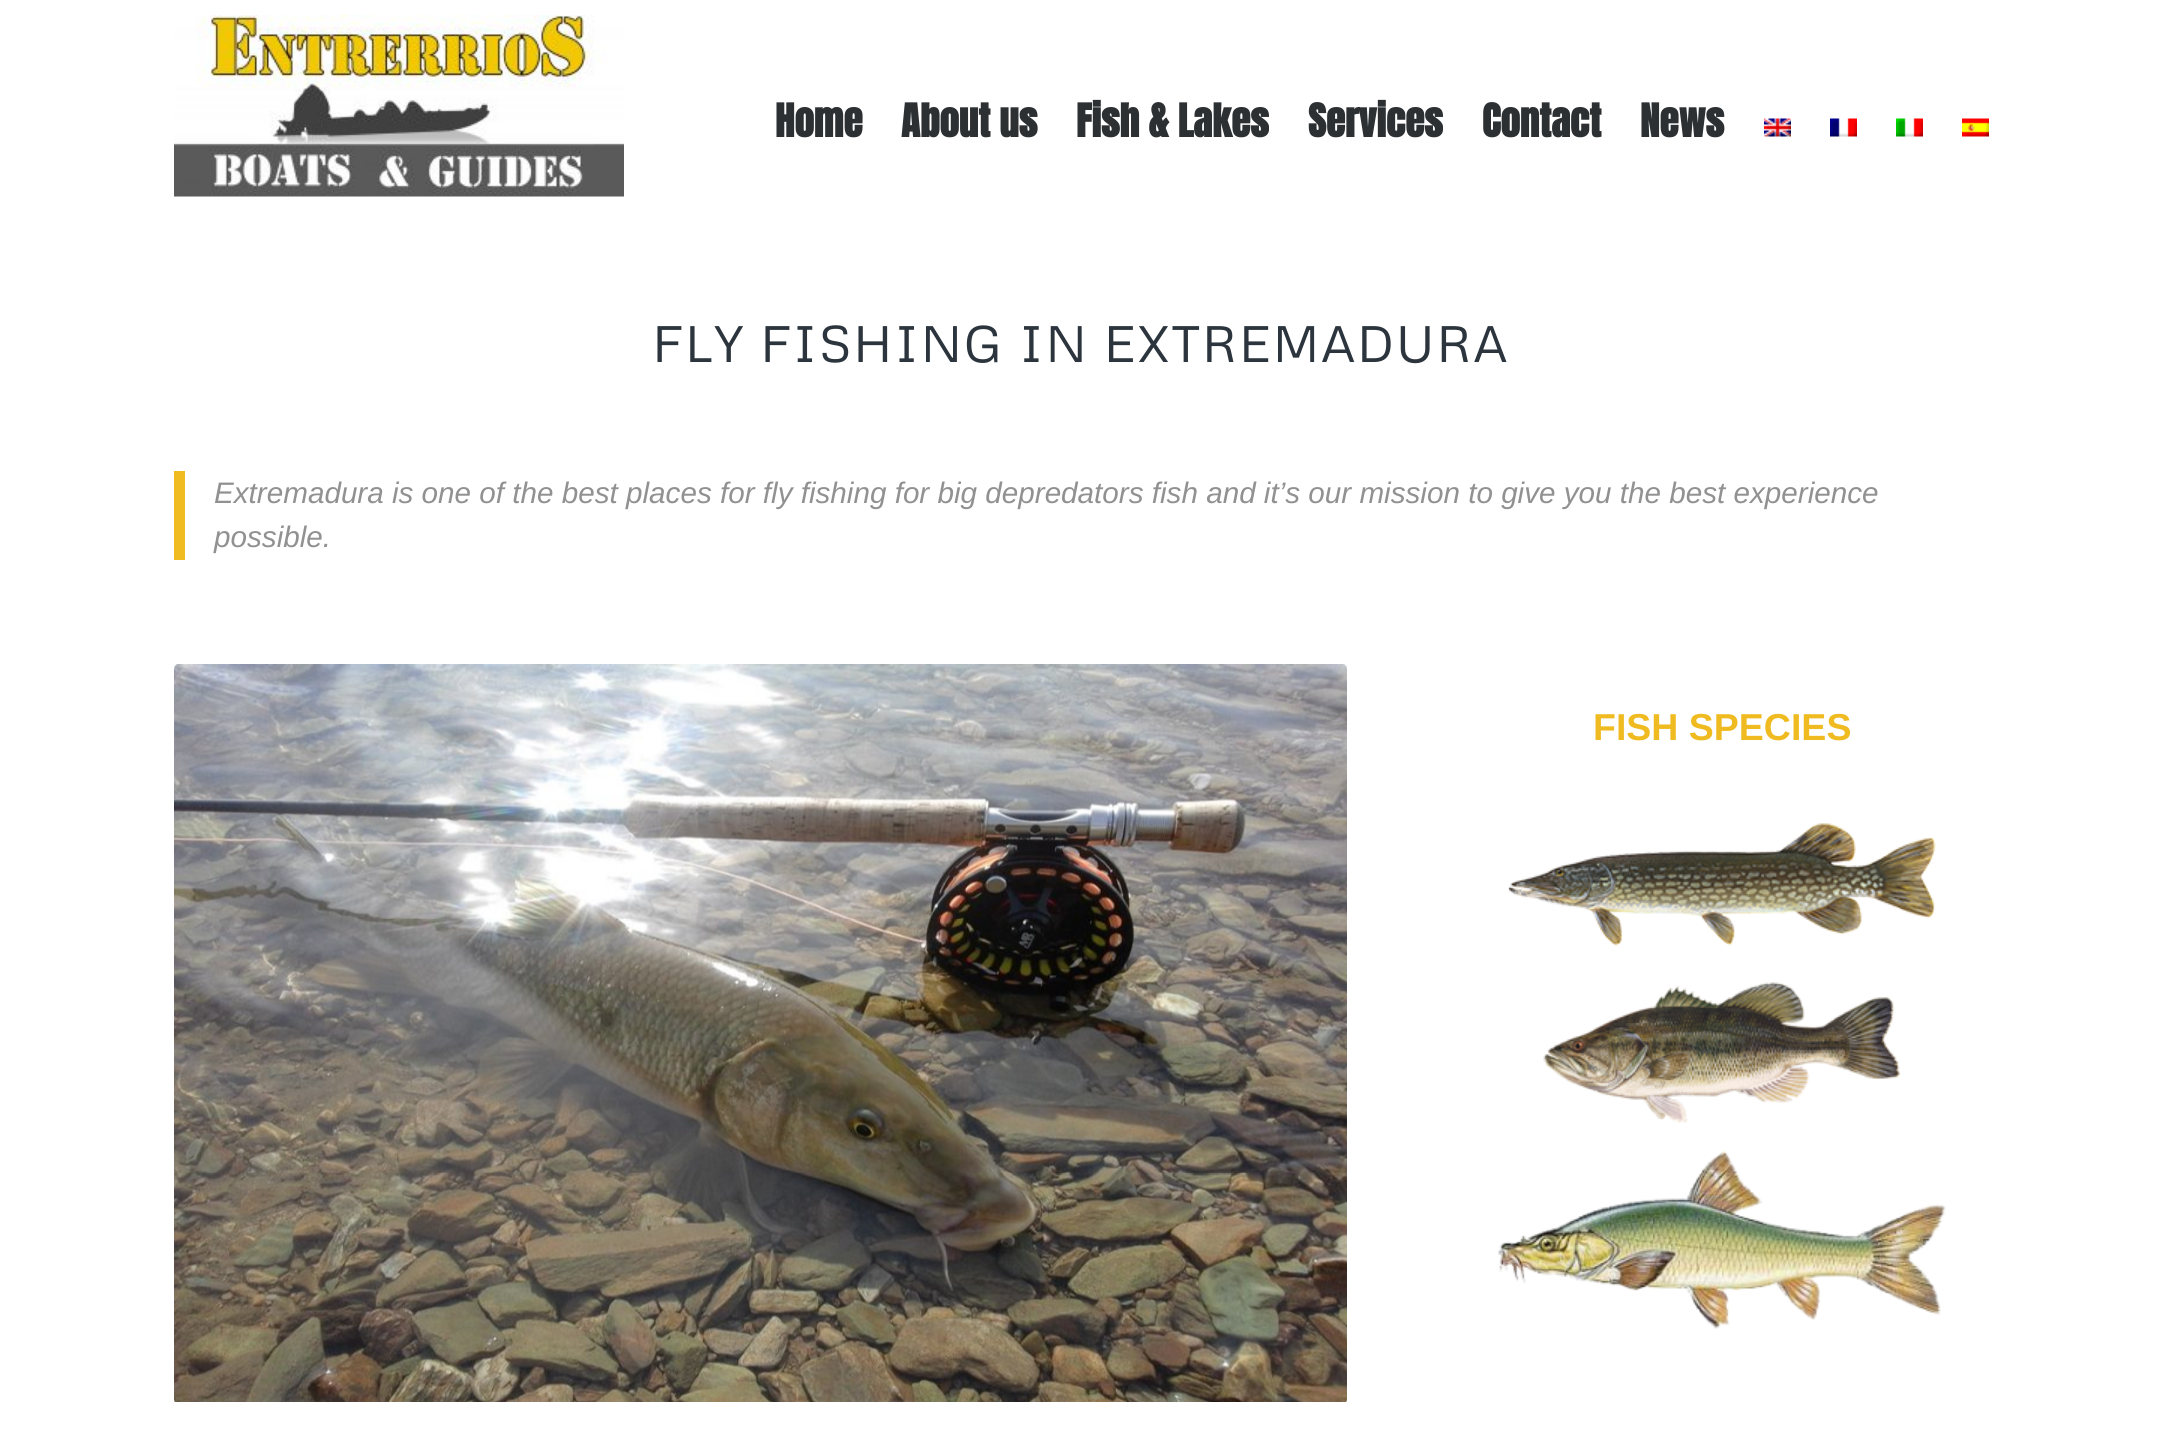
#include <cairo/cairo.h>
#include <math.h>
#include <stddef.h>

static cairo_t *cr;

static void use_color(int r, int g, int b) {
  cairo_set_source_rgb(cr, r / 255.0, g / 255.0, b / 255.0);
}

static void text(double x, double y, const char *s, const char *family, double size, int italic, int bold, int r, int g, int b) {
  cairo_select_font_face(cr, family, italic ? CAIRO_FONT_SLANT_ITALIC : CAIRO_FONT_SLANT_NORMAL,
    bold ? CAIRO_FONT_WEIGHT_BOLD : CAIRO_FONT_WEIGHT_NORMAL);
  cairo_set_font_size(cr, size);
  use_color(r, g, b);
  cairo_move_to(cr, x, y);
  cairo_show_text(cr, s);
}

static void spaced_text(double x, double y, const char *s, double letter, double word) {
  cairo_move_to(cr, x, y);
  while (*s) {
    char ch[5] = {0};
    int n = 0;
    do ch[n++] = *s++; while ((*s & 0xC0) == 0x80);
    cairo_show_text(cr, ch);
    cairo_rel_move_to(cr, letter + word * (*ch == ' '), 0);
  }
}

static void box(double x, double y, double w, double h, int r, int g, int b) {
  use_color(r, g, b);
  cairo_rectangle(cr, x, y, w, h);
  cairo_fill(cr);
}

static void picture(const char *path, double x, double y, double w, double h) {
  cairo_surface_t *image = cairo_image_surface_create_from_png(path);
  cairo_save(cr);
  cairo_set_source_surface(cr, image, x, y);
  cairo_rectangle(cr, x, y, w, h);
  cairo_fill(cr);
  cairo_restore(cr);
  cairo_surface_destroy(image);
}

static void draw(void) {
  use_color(255, 255, 255);
  cairo_paint(cr);
  picture("img_01.png", 174, 15, 450, 182);
  picture("img_02.png", 1764, 118, 27, 19);
  picture("img_03.png", 1830, 118, 27, 19);
  picture("img_04.png", 1896, 118, 27, 19);
  picture("img_05.png", 1962, 118, 27, 19);
  box(174, 471, 11, 89, 239, 187, 32);
  picture("img_06.png", 174, 664, 1173, 738);
  picture("img_07.png", 1508, 823, 428, 123);
  picture("img_08.png", 1543, 982, 358, 141);
  picture("img_09.png", 1498, 1150, 448, 179);
  text(775, 137, "Home", "Anton", 39, 0, 1, 44, 48, 51);
  text(901, 137, "About us", "Anton", 39, 0, 1, 44, 48, 51);
  text(1076, 137, "Fish & Lakes", "Anton", 39, 0, 1, 44, 48, 51);
  text(1308, 137, "Services", "Anton", 39, 0, 1, 44, 48, 51);
  text(1482, 137, "Contact", "Anton", 39, 0, 1, 44, 48, 51);
  text(1640, 137, "News", "Anton", 39, 0, 1, 44, 48, 51);
  cairo_select_font_face(cr, "Metrophobic", CAIRO_FONT_SLANT_NORMAL, CAIRO_FONT_WEIGHT_NORMAL);
  cairo_set_font_size(cr, 51);
  use_color(44, 53, 61);
  spaced_text(652, 362, "FLY FISHING IN EXTREMADURA", 1.5, 0);
  text(214, 503, "Extremadura is one of the best places for fly fishing for big depredators fish and it’s our mission to give you the best experience", "Liberation Sans", 29.65, 1, 0, 145, 145, 145);
  text(214, 547, "possible.", "Liberation Sans", 29.65, 1, 0, 145, 145, 145);
  text(1593, 740, "FISH SPECIES", "Liberation Sans", 37.5, 0, 1, 239, 187, 32);
}

int main(void) {
  cairo_surface_t *surface = cairo_image_surface_create(CAIRO_FORMAT_RGB24, 2161, 1452);
  cr = cairo_create(surface);
  cairo_font_options_t *options = cairo_font_options_create();
  cairo_font_options_set_hint_metrics(options, CAIRO_HINT_METRICS_OFF);
  cairo_font_options_set_hint_style(options, CAIRO_HINT_STYLE_NONE);
  cairo_set_font_options(cr, options);
  cairo_set_miter_limit(cr, 4);
  draw();
  cairo_surface_write_to_png(surface, "out.png");
  cairo_font_options_destroy(options);
  cairo_destroy(cr);
  cairo_surface_destroy(surface);
  return 0;
}
